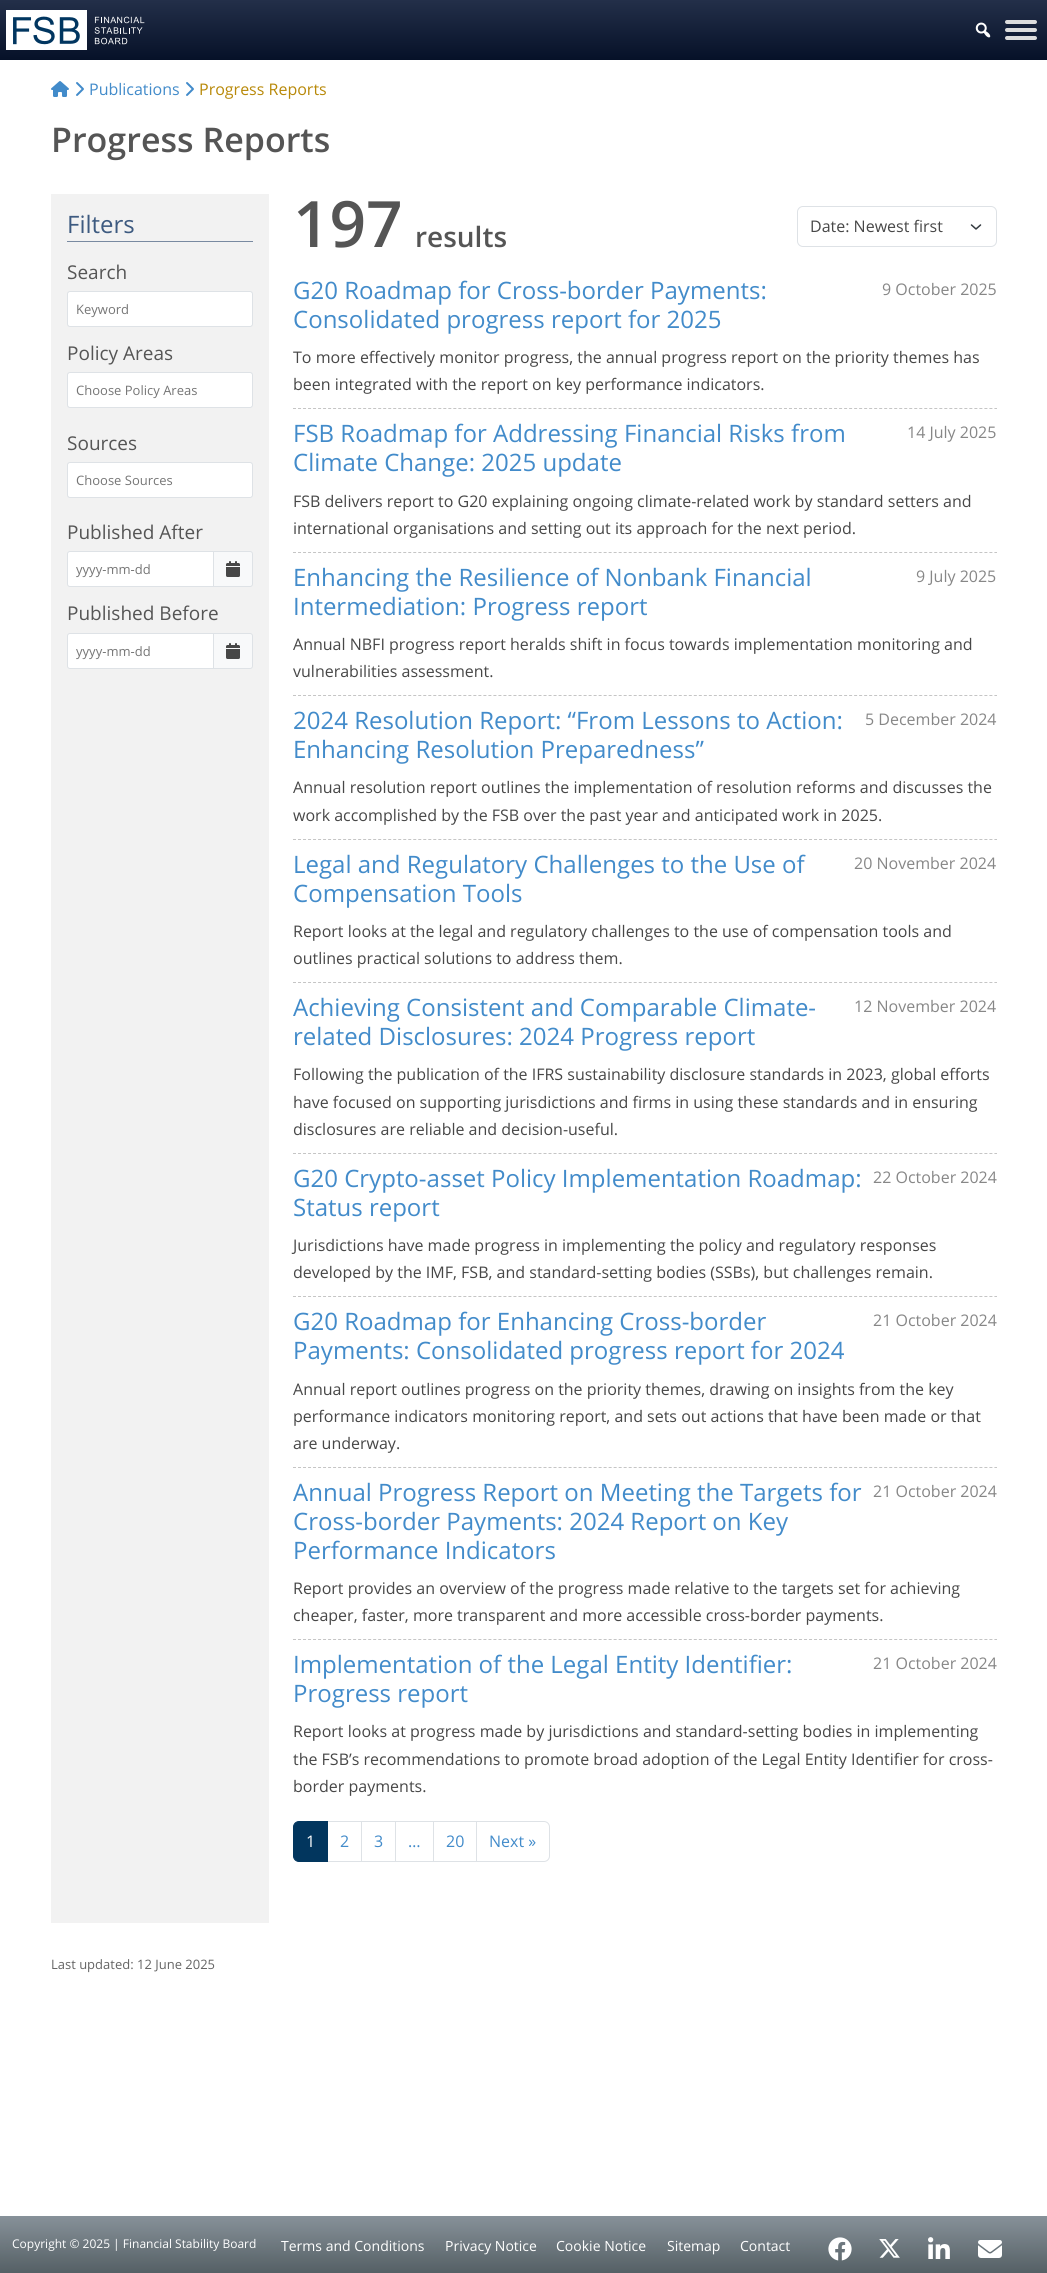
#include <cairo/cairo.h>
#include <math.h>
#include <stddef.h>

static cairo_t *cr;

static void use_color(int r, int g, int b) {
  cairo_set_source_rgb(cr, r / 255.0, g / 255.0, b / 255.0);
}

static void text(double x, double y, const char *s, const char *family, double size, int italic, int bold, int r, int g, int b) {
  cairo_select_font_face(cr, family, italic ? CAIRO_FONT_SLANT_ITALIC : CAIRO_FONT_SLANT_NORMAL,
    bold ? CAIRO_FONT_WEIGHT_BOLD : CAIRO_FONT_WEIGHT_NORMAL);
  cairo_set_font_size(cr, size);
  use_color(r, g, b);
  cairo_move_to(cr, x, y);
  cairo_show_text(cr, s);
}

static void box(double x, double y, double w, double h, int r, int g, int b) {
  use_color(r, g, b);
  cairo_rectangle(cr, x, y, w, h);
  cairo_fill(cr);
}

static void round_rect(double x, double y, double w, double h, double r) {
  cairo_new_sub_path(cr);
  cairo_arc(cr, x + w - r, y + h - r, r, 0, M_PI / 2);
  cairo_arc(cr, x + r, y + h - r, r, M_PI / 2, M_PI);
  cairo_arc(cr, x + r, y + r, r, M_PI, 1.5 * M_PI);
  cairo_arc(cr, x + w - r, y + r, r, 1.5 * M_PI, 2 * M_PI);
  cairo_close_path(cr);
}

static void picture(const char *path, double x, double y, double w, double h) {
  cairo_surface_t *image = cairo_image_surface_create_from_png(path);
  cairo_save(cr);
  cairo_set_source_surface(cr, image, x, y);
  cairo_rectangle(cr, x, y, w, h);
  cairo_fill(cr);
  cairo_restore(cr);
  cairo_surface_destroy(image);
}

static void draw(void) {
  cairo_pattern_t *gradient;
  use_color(255, 255, 255);
  cairo_paint(cr);
  gradient = cairo_pattern_create_linear(524, 0, 524, 60);
  cairo_pattern_add_color_stop_rgba(gradient, 0, 0.137, 0.184, 0.286, 1);
  cairo_pattern_add_color_stop_rgba(gradient, 1, 0.024, 0.067, 0.157, 1);
  cairo_set_source(cr, gradient);
  cairo_pattern_destroy(gradient);
  cairo_rectangle(cr, 0, 0, 1047, 60);
  cairo_fill(cr);
  picture("img_01.png", 6, 10, 139, 40);
  picture("img_02.png", 975, 22, 16, 16);
  use_color(221, 221, 221);
  round_rect(1005, 20, 32, 4, 2);
  cairo_fill(cr);
  round_rect(1005, 28, 32, 4, 2);
  cairo_fill(cr);
  round_rect(1005, 36, 32, 4, 2);
  cairo_fill(cr);
  picture("img_03.png", 51, 81, 18, 16);
  picture("img_04.png", 76, 82, 8, 14);
  picture("img_04.png", 186, 82, 8, 14);
  box(51, 194, 218, 1729, 242, 242, 242);
  box(67, 241, 186, 1, 121, 138, 161);
  use_color(255, 255, 255);
  round_rect(67.5, 291.5, 185, 35, 2.5);
  cairo_fill_preserve(cr);
  use_color(222, 226, 230);
  cairo_set_line_width(cr, 1);
  cairo_stroke(cr);
  use_color(255, 255, 255);
  round_rect(67.5, 372.5, 185, 35, 2.5);
  cairo_fill_preserve(cr);
  use_color(222, 226, 230);
  cairo_stroke(cr);
  use_color(255, 255, 255);
  round_rect(67.5, 462.5, 185, 35, 2.5);
  cairo_fill_preserve(cr);
  use_color(222, 226, 230);
  cairo_stroke(cr);
  use_color(248, 249, 250);
  cairo_new_path(cr);
  cairo_move_to(cr, 213.5, 551.5);
  cairo_line_to(cr, 250, 551.5);
  cairo_curve_to(cr, 251.5, 551.5, 252.5, 552.5, 252.5, 554);
  cairo_line_to(cr, 252.5, 584);
  cairo_curve_to(cr, 252.5, 585.5, 251.5, 586.5, 250, 586.5);
  cairo_line_to(cr, 213.5, 586.5);
  cairo_close_path(cr);
  cairo_fill_preserve(cr);
  use_color(222, 226, 230);
  cairo_stroke(cr);
  use_color(255, 255, 255);
  cairo_new_path(cr);
  cairo_move_to(cr, 70, 551.5);
  cairo_line_to(cr, 213.5, 551.5);
  cairo_line_to(cr, 213.5, 586.5);
  cairo_line_to(cr, 70, 586.5);
  cairo_curve_to(cr, 68.5, 586.5, 67.5, 585.5, 67.5, 584);
  cairo_line_to(cr, 67.5, 554);
  cairo_curve_to(cr, 67.5, 552.5, 68.5, 551.5, 70, 551.5);
  cairo_close_path(cr);
  cairo_fill_preserve(cr);
  use_color(222, 226, 230);
  cairo_stroke(cr);
  picture("img_05.png", 226, 561, 14, 16);
  use_color(248, 249, 250);
  cairo_new_path(cr);
  cairo_move_to(cr, 213.5, 633.5);
  cairo_line_to(cr, 250, 633.5);
  cairo_curve_to(cr, 251.5, 633.5, 252.5, 634.5, 252.5, 636);
  cairo_line_to(cr, 252.5, 666);
  cairo_curve_to(cr, 252.5, 667.5, 251.5, 668.5, 250, 668.5);
  cairo_line_to(cr, 213.5, 668.5);
  cairo_close_path(cr);
  cairo_fill_preserve(cr);
  use_color(222, 226, 230);
  cairo_stroke(cr);
  use_color(255, 255, 255);
  cairo_new_path(cr);
  cairo_move_to(cr, 70, 633.5);
  cairo_line_to(cr, 213.5, 633.5);
  cairo_line_to(cr, 213.5, 668.5);
  cairo_line_to(cr, 70, 668.5);
  cairo_curve_to(cr, 68.5, 668.5, 67.5, 667.5, 67.5, 666);
  cairo_line_to(cr, 67.5, 636);
  cairo_curve_to(cr, 67.5, 634.5, 68.5, 633.5, 70, 633.5);
  cairo_close_path(cr);
  cairo_fill_preserve(cr);
  use_color(222, 226, 230);
  cairo_stroke(cr);
  picture("img_05.png", 226, 643, 14, 16);
  cairo_new_path(cr);
  cairo_move_to(cr, 971.5, 225);
  cairo_line_to(cr, 976, 229);
  cairo_line_to(cr, 980.5, 225);
  use_color(52, 58, 64);
  cairo_set_line_width(cr, 1.5);
  cairo_set_line_cap(cr, CAIRO_LINE_CAP_ROUND);
  cairo_set_line_join(cr, CAIRO_LINE_JOIN_ROUND);
  cairo_stroke(cr);
  round_rect(797.5, 206.5, 199, 40, 5.5);
  use_color(222, 226, 230);
  cairo_set_line_width(cr, 1);
  cairo_set_line_cap(cr, CAIRO_LINE_CAP_BUTT);
  cairo_set_line_join(cr, CAIRO_LINE_JOIN_MITER);
  cairo_stroke(cr);
  cairo_new_path(cr);
  cairo_move_to(cr, 293, 408.5);
  cairo_line_to(cr, 997, 408.5);
  use_color(197, 197, 197);
  cairo_set_dash(cr, (double[]){3, 2.01}, 2, 0);
  cairo_stroke(cr);
  cairo_new_path(cr);
  cairo_move_to(cr, 293, 552.5);
  cairo_line_to(cr, 997, 552.5);
  cairo_stroke(cr);
  cairo_new_path(cr);
  cairo_move_to(cr, 293, 695.5);
  cairo_line_to(cr, 997, 695.5);
  cairo_stroke(cr);
  cairo_new_path(cr);
  cairo_move_to(cr, 293, 839.5);
  cairo_line_to(cr, 997, 839.5);
  cairo_stroke(cr);
  cairo_new_path(cr);
  cairo_move_to(cr, 293, 982.5);
  cairo_line_to(cr, 997, 982.5);
  cairo_stroke(cr);
  cairo_new_path(cr);
  cairo_move_to(cr, 293, 1153.5);
  cairo_line_to(cr, 997, 1153.5);
  cairo_stroke(cr);
  cairo_new_path(cr);
  cairo_move_to(cr, 293, 1296.5);
  cairo_line_to(cr, 997, 1296.5);
  cairo_stroke(cr);
  cairo_new_path(cr);
  cairo_move_to(cr, 293, 1467.5);
  cairo_line_to(cr, 997, 1467.5);
  cairo_stroke(cr);
  cairo_new_path(cr);
  cairo_move_to(cr, 293, 1639.5);
  cairo_line_to(cr, 997, 1639.5);
  cairo_stroke(cr);
  cairo_rectangle(cr, 327.5, 1821.5, 34, 40);
  use_color(222, 226, 230);
  cairo_set_dash(cr, NULL, 0, 0);
  cairo_stroke(cr);
  use_color(2, 54, 94);
  cairo_new_path(cr);
  cairo_move_to(cr, 299, 1821.5);
  cairo_line_to(cr, 327.5, 1821.5);
  cairo_line_to(cr, 327.5, 1861.5);
  cairo_line_to(cr, 299, 1861.5);
  cairo_curve_to(cr, 296, 1861.5, 293.5, 1859, 293.5, 1856);
  cairo_line_to(cr, 293.5, 1827);
  cairo_curve_to(cr, 293.5, 1824, 296, 1821.5, 299, 1821.5);
  cairo_close_path(cr);
  cairo_fill_preserve(cr);
  cairo_stroke(cr);
  cairo_rectangle(cr, 361.5, 1821.5, 34, 40);
  use_color(222, 226, 230);
  cairo_stroke(cr);
  cairo_rectangle(cr, 395.5, 1821.5, 38, 40);
  cairo_stroke(cr);
  cairo_rectangle(cr, 433.5, 1821.5, 43, 40);
  cairo_stroke(cr);
  use_color(255, 255, 255);
  cairo_new_path(cr);
  cairo_move_to(cr, 476.5, 1821.5);
  cairo_line_to(cr, 544, 1821.5);
  cairo_curve_to(cr, 547, 1821.5, 549.5, 1824, 549.5, 1827);
  cairo_line_to(cr, 549.5, 1856);
  cairo_curve_to(cr, 549.5, 1859, 547, 1861.5, 544, 1861.5);
  cairo_line_to(cr, 476.5, 1861.5);
  cairo_close_path(cr);
  cairo_fill_preserve(cr);
  use_color(222, 226, 230);
  cairo_stroke(cr);
  gradient = cairo_pattern_create_linear(524, 2216, 524, 2273);
  cairo_pattern_add_color_stop_rgba(gradient, 0, 0.529, 0.569, 0.6, 1);
  cairo_pattern_add_color_stop_rgba(gradient, 1, 0.333, 0.376, 0.396, 1);
  cairo_set_source(cr, gradient);
  cairo_pattern_destroy(gradient);
  cairo_rectangle(cr, 0, 2216, 1047, 57);
  cairo_fill(cr);
  picture("img_06.png", 828, 2237, 24, 24);
  picture("img_07.png", 879, 2239, 21, 19);
  picture("img_08.png", 928, 2237, 22, 22);
  picture("img_09.png", 978, 2240, 24, 18);
  text(89, 95, "Publications", "Open Sans", 16, 0, 0, 66, 139, 202);
  text(199, 95, "Progress Reports", "Open Sans", 16, 0, 0, 184, 137, 9);
  text(51, 152, "Progress Reports", "Open Sans SemiBold", 34, 0, 0, 85, 85, 85);
  text(67, 233, "Filters", "Open Sans", 24, 0, 0, 61, 90, 128);
  text(67, 279, "Search", "Open Sans", 19, 0, 0, 85, 85, 85);
  text(76, 314, "Keyword", "Open Sans", 13, 0, 0, 117, 117, 117);
  text(67, 360, "Policy Areas", "Open Sans", 19, 0, 0, 85, 85, 85);
  text(76, 395, "Choose Policy Areas", "Open Sans", 13, 0, 0, 117, 117, 117);
  text(67, 450, "Sources", "Open Sans", 19, 0, 0, 85, 85, 85);
  text(76, 485, "Choose Sources", "Open Sans", 13, 0, 0, 117, 117, 117);
  text(67, 539, "Published After", "Open Sans", 19, 0, 0, 85, 85, 85);
  text(76, 574, "yyyy-mm-dd", "Open Sans", 13, 0, 0, 117, 117, 117);
  text(67, 620, "Published Before", "Open Sans", 19, 0, 0, 85, 85, 85);
  text(76, 656, "yyyy-mm-dd", "Open Sans", 13, 0, 0, 117, 117, 117);
  text(293, 247, "197", "Open Sans SemiBold", 64, 0, 0, 85, 85, 85);
  text(415, 247, "results", "Open Sans SemiBold", 28, 0, 0, 85, 85, 85);
  text(810, 232, "Date: Newest first", "Open Sans", 16, 0, 0, 71, 71, 71);
  text(293, 299, "G20 Roadmap for Cross-border Payments:", "Open Sans", 24, 0, 0, 66, 139, 202);
  text(293, 328, "Consolidated progress report for 2025", "Open Sans", 24, 0, 0, 66, 139, 202);
  text(882, 295, "9 October 2025", "Open Sans", 16, 0, 0, 135, 135, 135);
  text(293, 363, "To more effectively monitor progress, the annual progress report on the priority themes has", "Open Sans", 16, 0, 0, 71, 71, 71);
  text(293, 390, "been integrated with the report on key performance indicators.", "Open Sans", 16, 0, 0, 71, 71, 71);
  text(293, 442, "FSB Roadmap for Addressing Financial Risks from", "Open Sans", 24, 0, 0, 66, 139, 202);
  text(293, 471, "Climate Change: 2025 update", "Open Sans", 24, 0, 0, 66, 139, 202);
  text(907, 438, "14 July 2025", "Open Sans", 16, 0, 0, 135, 135, 135);
  text(293, 507, "FSB delivers report to G20 explaining ongoing climate-related work by standard setters and", "Open Sans", 16, 0, 0, 71, 71, 71);
  text(293, 534, "international organisations and setting out its approach for the next period.", "Open Sans", 16, 0, 0, 71, 71, 71);
  text(293, 586, "Enhancing the Resilience of Nonbank Financial", "Open Sans", 24, 0, 0, 66, 139, 202);
  text(293, 615, "Intermediation: Progress report", "Open Sans", 24, 0, 0, 66, 139, 202);
  text(916, 582, "9 July 2025", "Open Sans", 16, 0, 0, 135, 135, 135);
  text(293, 650, "Annual NBFI progress report heralds shift in focus towards implementation monitoring and", "Open Sans", 16, 0, 0, 71, 71, 71);
  text(293, 677, "vulnerabilities assessment.", "Open Sans", 16, 0, 0, 71, 71, 71);
  text(293, 729, "2024 Resolution Report: “From Lessons to Action:", "Open Sans", 24, 0, 0, 66, 139, 202);
  text(293, 758, "Enhancing Resolution Preparedness”", "Open Sans", 24, 0, 0, 66, 139, 202);
  text(865, 725, "5 December 2024", "Open Sans", 16, 0, 0, 135, 135, 135);
  text(293, 793, "Annual resolution report outlines the implementation of resolution reforms and discusses the", "Open Sans", 16, 0, 0, 71, 71, 71);
  text(293, 821, "work accomplished by the FSB over the past year and anticipated work in 2025.", "Open Sans", 16, 0, 0, 71, 71, 71);
  text(293, 873, "Legal and Regulatory Challenges to the Use of", "Open Sans", 24, 0, 0, 66, 139, 202);
  text(293, 902, "Compensation Tools", "Open Sans", 24, 0, 0, 66, 139, 202);
  text(854, 869, "20 November 2024", "Open Sans", 16, 0, 0, 135, 135, 135);
  text(293, 937, "Report looks at the legal and regulatory challenges to the use of compensation tools and", "Open Sans", 16, 0, 0, 71, 71, 71);
  text(293, 964, "outlines practical solutions to address them.", "Open Sans", 16, 0, 0, 71, 71, 71);
  text(293, 1016, "Achieving Consistent and Comparable Climate-", "Open Sans", 24, 0, 0, 66, 139, 202);
  text(293, 1045, "related Disclosures: 2024 Progress report", "Open Sans", 24, 0, 0, 66, 139, 202);
  text(854, 1012, "12 November 2024", "Open Sans", 16, 0, 0, 135, 135, 135);
  text(293, 1080, "Following the publication of the IFRS sustainability disclosure standards in 2023, global efforts", "Open Sans", 16, 0, 0, 71, 71, 71);
  text(293, 1108, "have focused on supporting jurisdictions and firms in using these standards and in ensuring", "Open Sans", 16, 0, 0, 71, 71, 71);
  text(293, 1135, "disclosures are reliable and decision-useful.", "Open Sans", 16, 0, 0, 71, 71, 71);
  text(293, 1187, "G20 Crypto-asset Policy Implementation Roadmap:", "Open Sans", 24, 0, 0, 66, 139, 202);
  text(293, 1216, "Status report", "Open Sans", 24, 0, 0, 66, 139, 202);
  text(873, 1183, "22 October 2024", "Open Sans", 16, 0, 0, 135, 135, 135);
  text(293, 1251, "Jurisdictions have made progress in implementing the policy and regulatory responses", "Open Sans", 16, 0, 0, 71, 71, 71);
  text(293, 1278, "developed by the IMF, FSB, and standard-setting bodies (SSBs), but challenges remain.", "Open Sans", 16, 0, 0, 71, 71, 71);
  text(293, 1330, "G20 Roadmap for Enhancing Cross-border", "Open Sans", 24, 0, 0, 66, 139, 202);
  text(293, 1359, "Payments: Consolidated progress report for 2024", "Open Sans", 24, 0, 0, 66, 139, 202);
  text(873, 1326, "21 October 2024", "Open Sans", 16, 0, 0, 135, 135, 135);
  text(293, 1395, "Annual report outlines progress on the priority themes, drawing on insights from the key", "Open Sans", 16, 0, 0, 71, 71, 71);
  text(293, 1422, "performance indicators monitoring report, and sets out actions that have been made or that", "Open Sans", 16, 0, 0, 71, 71, 71);
  text(293, 1449, "are underway.", "Open Sans", 16, 0, 0, 71, 71, 71);
  text(293, 1501, "Annual Progress Report on Meeting the Targets for", "Open Sans", 24, 0, 0, 66, 139, 202);
  text(293, 1530, "Cross-border Payments: 2024 Report on Key", "Open Sans", 24, 0, 0, 66, 139, 202);
  text(293, 1559, "Performance Indicators", "Open Sans", 24, 0, 0, 66, 139, 202);
  text(873, 1497, "21 October 2024", "Open Sans", 16, 0, 0, 135, 135, 135);
  text(293, 1594, "Report provides an overview of the progress made relative to the targets set for achieving", "Open Sans", 16, 0, 0, 71, 71, 71);
  text(293, 1621, "cheaper, faster, more transparent and more accessible cross-border payments.", "Open Sans", 16, 0, 0, 71, 71, 71);
  text(293, 1673, "Implementation of the Legal Entity Identifier:", "Open Sans", 24, 0, 0, 66, 139, 202);
  text(293, 1702, "Progress report", "Open Sans", 24, 0, 0, 66, 139, 202);
  text(873, 1669, "21 October 2024", "Open Sans", 16, 0, 0, 135, 135, 135);
  text(293, 1737, "Report looks at progress made by jurisdictions and standard-setting bodies in implementing", "Open Sans", 16, 0, 0, 71, 71, 71);
  text(293, 1765, "the FSB’s recommendations to promote broad adoption of the Legal Entity Identifier for cross-", "Open Sans", 16, 0, 0, 71, 71, 71);
  text(293, 1792, "border payments.", "Open Sans", 16, 0, 0, 71, 71, 71);
  text(306, 1847, "1", "Open Sans", 16, 0, 0, 255, 255, 255);
  text(340, 1847, "2", "Open Sans", 16, 0, 0, 66, 139, 202);
  text(374, 1847, "3", "Open Sans", 16, 0, 0, 66, 139, 202);
  text(408, 1847, "…", "Open Sans", 16, 0, 0, 66, 139, 202);
  text(446, 1847, "20", "Open Sans", 16, 0, 0, 66, 139, 202);
  text(489, 1847, "Next »", "Open Sans", 16, 0, 0, 66, 139, 202);
  text(51, 1969, "Last updated: 12 June 2025", "Open Sans", 13, 0, 0, 100, 100, 100);
  text(12, 2248, "Copyright © 2025 | Financial Stability Board", "Open Sans", 12, 0, 0, 255, 255, 255);
  text(281, 2251, "Terms and Conditions", "Open Sans", 14, 0, 0, 255, 255, 255);
  text(445, 2251, "Privacy Notice", "Open Sans", 14, 0, 0, 255, 255, 255);
  text(556, 2251, "Cookie Notice", "Open Sans", 14, 0, 0, 255, 255, 255);
  text(667, 2251, "Sitemap", "Open Sans", 14, 0, 0, 255, 255, 255);
  text(740, 2251, "Contact", "Open Sans", 14, 0, 0, 255, 255, 255);
}

int main(void) {
  cairo_surface_t *surface = cairo_image_surface_create(CAIRO_FORMAT_RGB24, 1047, 2273);
  cr = cairo_create(surface);
  cairo_font_options_t *options = cairo_font_options_create();
  cairo_font_options_set_hint_metrics(options, CAIRO_HINT_METRICS_OFF);
  cairo_font_options_set_hint_style(options, CAIRO_HINT_STYLE_NONE);
  cairo_set_font_options(cr, options);
  cairo_set_miter_limit(cr, 4);
  draw();
  cairo_surface_write_to_png(surface, "out.png");
  cairo_font_options_destroy(options);
  cairo_destroy(cr);
  cairo_surface_destroy(surface);
  return 0;
}
